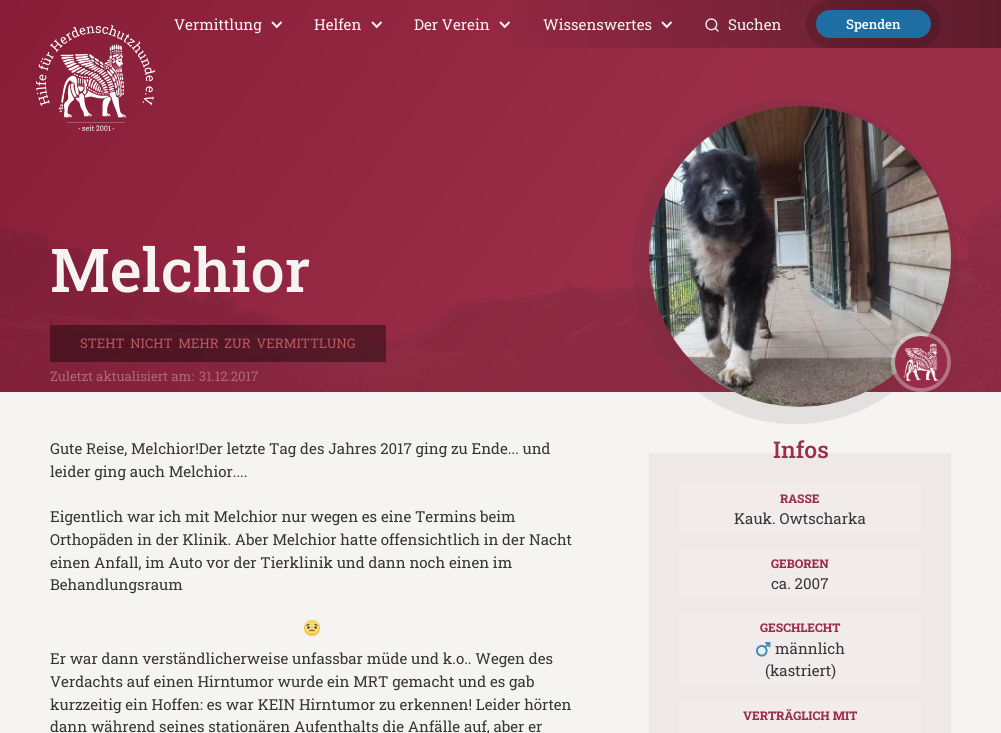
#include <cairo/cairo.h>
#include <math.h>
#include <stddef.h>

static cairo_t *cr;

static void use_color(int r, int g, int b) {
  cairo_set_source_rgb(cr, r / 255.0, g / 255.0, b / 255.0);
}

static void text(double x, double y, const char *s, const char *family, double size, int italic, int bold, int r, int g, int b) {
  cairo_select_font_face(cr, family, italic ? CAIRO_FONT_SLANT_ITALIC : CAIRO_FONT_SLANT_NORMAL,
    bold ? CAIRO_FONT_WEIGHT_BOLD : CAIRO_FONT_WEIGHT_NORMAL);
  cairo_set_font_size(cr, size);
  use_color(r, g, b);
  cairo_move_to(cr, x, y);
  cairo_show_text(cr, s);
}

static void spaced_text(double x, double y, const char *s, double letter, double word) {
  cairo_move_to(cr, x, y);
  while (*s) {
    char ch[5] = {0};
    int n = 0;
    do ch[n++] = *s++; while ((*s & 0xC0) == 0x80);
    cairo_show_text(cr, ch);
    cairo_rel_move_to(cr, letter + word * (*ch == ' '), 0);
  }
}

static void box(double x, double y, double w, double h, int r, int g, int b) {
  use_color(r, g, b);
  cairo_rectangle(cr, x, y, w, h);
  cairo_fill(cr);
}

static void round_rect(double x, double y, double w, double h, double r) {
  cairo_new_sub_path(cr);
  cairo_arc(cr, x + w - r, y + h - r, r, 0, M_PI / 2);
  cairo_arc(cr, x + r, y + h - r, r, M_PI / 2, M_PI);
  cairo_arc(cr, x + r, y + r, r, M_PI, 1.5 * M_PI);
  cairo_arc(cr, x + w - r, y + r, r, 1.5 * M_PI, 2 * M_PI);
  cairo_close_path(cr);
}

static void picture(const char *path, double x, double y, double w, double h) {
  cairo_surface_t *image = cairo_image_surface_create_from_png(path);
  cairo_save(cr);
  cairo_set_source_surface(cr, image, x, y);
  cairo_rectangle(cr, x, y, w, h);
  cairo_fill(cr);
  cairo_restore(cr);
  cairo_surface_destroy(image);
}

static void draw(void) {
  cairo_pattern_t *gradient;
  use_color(246, 244, 243);
  cairo_paint(cr);
  gradient = cairo_pattern_create_linear(80, -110, 921, 502);
  cairo_pattern_add_color_stop_rgba(gradient, 0, 0.533, 0.114, 0.22, 1);
  cairo_pattern_add_color_stop_rgba(gradient, 0.64, 0.608, 0.18, 0.286, 1);
  cairo_set_source(cr, gradient);
  cairo_pattern_destroy(gradient);
  cairo_rectangle(cr, 0, 0, 1001, 392);
  cairo_fill(cr);
  gradient = cairo_pattern_create_linear(0, 24, 1001, 24);
  cairo_pattern_add_color_stop_rgba(gradient, 0.48, 0, 0, 0, 0);
  cairo_pattern_add_color_stop_rgba(gradient, 1, 0, 0, 0, 0.4);
  cairo_set_source(cr, gradient);
  cairo_pattern_destroy(gradient);
  cairo_rectangle(cr, 509, 0, 492, 48);
  cairo_fill(cr);
  picture("img_01.png", 271, 21, 12, 8);
  picture("img_02.png", 371, 21, 12, 8);
  picture("img_03.png", 499, 21, 12, 8);
  picture("img_04.png", 661, 21, 12, 8);
  picture("img_05.png", 705, 18, 14, 14);
  round_rect(811, 5, 125, 38, 19);
  cairo_set_source_rgba(cr, 0, 0, 0, 0.07);
  cairo_set_line_width(cr, 10);
  cairo_stroke(cr);
  picture("img_06.png", 36, 25, 119, 106);
  round_rect(811, 5, 125, 38, 19);
  cairo_stroke(cr);
  use_color(30, 110, 163);
  round_rect(816, 10, 115, 28, 14);
  cairo_fill(cr);
  picture("img_07.png", 0, 195, 1001, 197);
  cairo_set_source_rgba(cr, 0, 0, 0, 0.4);
  cairo_rectangle(cr, 50, 325, 336, 37);
  cairo_fill(cr);
  cairo_set_source_rgba(cr, 0.212, 0.212, 0.212, 0.1);
  cairo_set_fill_rule(cr, CAIRO_FILL_RULE_EVEN_ODD);
  cairo_new_path(cr);
  cairo_move_to(cr, 794, 99);
  cairo_curve_to(cr, 705, 99, 632, 172, 632, 262);
  cairo_curve_to(cr, 632, 351, 705, 424, 794, 424);
  cairo_line_to(cr, 796, 424);
  cairo_curve_to(cr, 885, 424, 958, 351, 958, 262);
  cairo_curve_to(cr, 958, 172, 885, 99, 796, 99);
  cairo_close_path(cr);
  cairo_move_to(cr, 800, 106);
  cairo_curve_to(cr, 717, 106, 649, 173, 649, 256);
  cairo_curve_to(cr, 649, 340, 717, 407, 800, 407);
  cairo_curve_to(cr, 883, 407, 951, 340, 951, 256);
  cairo_curve_to(cr, 951, 173, 883, 106, 800, 106);
  cairo_close_path(cr);
  cairo_fill(cr);
  picture("img_08.png", 649, 106, 302, 301);
  cairo_arc(cr, 921, 362, 28, 0, 2 * M_PI);
  cairo_set_source_rgba(cr, 1, 1, 1, 0.34);
  cairo_set_line_width(cr, 4);
  cairo_stroke(cr);
  picture("img_09.png", 895, 336, 52, 52);
  picture("img_10.png", 304, 620, 16, 16);
  box(649, 453, 302, 280, 238, 233, 231);
  box(679, 483, 242, 50, 241, 236, 235);
  box(679, 548, 242, 49, 241, 236, 235);
  box(679, 612, 242, 73, 241, 236, 235);
  picture("img_11.png", 756, 642, 15, 15);
  box(679, 700, 242, 33, 241, 236, 235);
  text(174, 30, "Vermittlung", "Roboto Slab", 15.1, 0, 0, 246, 244, 243);
  text(314, 30, "Helfen", "Roboto Slab", 15.1, 0, 0, 246, 244, 243);
  text(414, 30, "Der Verein", "Roboto Slab", 15.1, 0, 0, 246, 244, 243);
  text(543, 30, "Wissenswertes", "Roboto Slab", 15.1, 0, 0, 246, 244, 243);
  text(728, 30, "Suchen", "Roboto Slab", 15.1, 0, 0, 246, 244, 243);
  text(846, 29, "Spenden", "Roboto Slab Medium", 13.2, 0, 0, 255, 255, 255);
  text(50, 292, "Melchior", "Roboto Slab Medium", 60.5, 0, 0, 246, 244, 243);
  cairo_select_font_face(cr, "Roboto Slab", CAIRO_FONT_SLANT_NORMAL, CAIRO_FONT_WEIGHT_NORMAL);
  cairo_set_font_size(cr, 13.2);
  use_color(189, 87, 97);
  spaced_text(80, 348, "STEHT NICHT MEHR ZUR VERMITTLUNG", 0, 2.5);
  text(50, 381, "Zuletzt aktualisiert am:", "Roboto Slab", 13.2, 0, 0, 171, 105, 122);
  text(199, 381, "31.12.2017", "Roboto Slab", 13.2, 0, 0, 171, 105, 122);
  text(50, 454, "Gute Reise, Melchior!Der letzte Tag des Jahres 2017 ging zu Ende... und", "Roboto Slab", 15.1, 0, 0, 54, 54, 54);
  text(50, 477, "leider ging auch Melchior....", "Roboto Slab", 15.1, 0, 0, 54, 54, 54);
  text(50, 522, "Eigentlich war ich mit Melchior nur wegen es eine Termins beim", "Roboto Slab", 15.1, 0, 0, 54, 54, 54);
  text(50, 545, "Orthopäden in der Klinik. Aber Melchior hatte offensichtlich in der Nacht", "Roboto Slab", 15.1, 0, 0, 54, 54, 54);
  text(50, 568, "einen Anfall, im Auto vor der Tierklinik und dann noch einen im", "Roboto Slab", 15.1, 0, 0, 54, 54, 54);
  text(50, 590, "Behandlungsraum", "Roboto Slab", 15.1, 0, 0, 54, 54, 54);
  text(50, 664, "Er war dann verständlicherweise unfassbar müde und k.o.. Wegen des", "Roboto Slab", 15.1, 0, 0, 54, 54, 54);
  text(50, 687, "Verdachts auf einen Hirntumor wurde ein MRT gemacht und es gab", "Roboto Slab", 15.1, 0, 0, 54, 54, 54);
  text(50, 710, "kurzzeitig ein Hoffen: es war KEIN Hirntumor zu erkennen! Leider hörten", "Roboto Slab", 15.1, 0, 0, 54, 54, 54);
  text(50, 732, "dann während seines stationären Aufenthalts die Anfälle auf, aber er", "Roboto Slab", 15.1, 0, 0, 54, 54, 54);
  text(773, 458, "Infos", "Roboto Slab Medium", 23, 0, 0, 155, 46, 73);
  text(780, 503, "RASSE", "Roboto Slab ExtraBold", 12, 0, 0, 155, 46, 73);
  text(734, 524, "Kauk. Owtscharka", "Roboto Slab", 15.1, 0, 0, 54, 54, 54);
  text(771, 568, "GEBOREN", "Roboto Slab ExtraBold", 12, 0, 0, 155, 46, 73);
  text(771, 589, "ca. 2007", "Roboto Slab", 15.1, 0, 0, 54, 54, 54);
  text(760, 632, "GESCHLECHT", "Roboto Slab ExtraBold", 12, 0, 0, 155, 46, 73);
  text(775, 654, "männlich", "Roboto Slab", 15.1, 0, 0, 54, 54, 54);
  text(765, 676, "(kastriert)", "Roboto Slab", 15.1, 0, 0, 54, 54, 54);
  text(743, 720, "VERTRÄGLICH MIT", "Roboto Slab ExtraBold", 12, 0, 0, 155, 46, 73);
}

int main(void) {
  cairo_surface_t *surface = cairo_image_surface_create(CAIRO_FORMAT_RGB24, 1001, 733);
  cr = cairo_create(surface);
  cairo_font_options_t *options = cairo_font_options_create();
  cairo_font_options_set_hint_metrics(options, CAIRO_HINT_METRICS_OFF);
  cairo_font_options_set_hint_style(options, CAIRO_HINT_STYLE_NONE);
  cairo_set_font_options(cr, options);
  cairo_set_miter_limit(cr, 4);
  draw();
  cairo_surface_write_to_png(surface, "out.png");
  cairo_font_options_destroy(options);
  cairo_destroy(cr);
  cairo_surface_destroy(surface);
  return 0;
}
